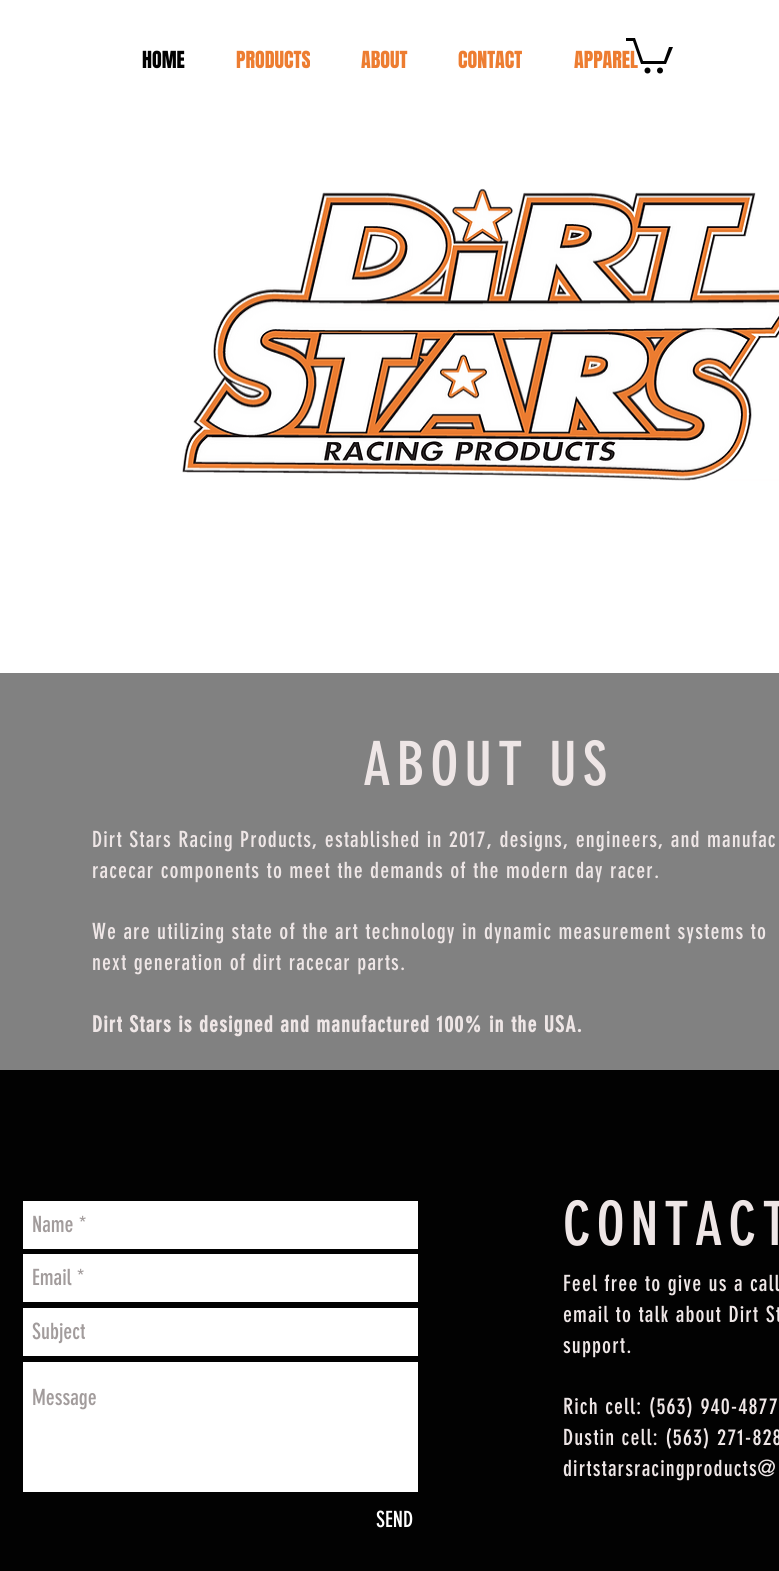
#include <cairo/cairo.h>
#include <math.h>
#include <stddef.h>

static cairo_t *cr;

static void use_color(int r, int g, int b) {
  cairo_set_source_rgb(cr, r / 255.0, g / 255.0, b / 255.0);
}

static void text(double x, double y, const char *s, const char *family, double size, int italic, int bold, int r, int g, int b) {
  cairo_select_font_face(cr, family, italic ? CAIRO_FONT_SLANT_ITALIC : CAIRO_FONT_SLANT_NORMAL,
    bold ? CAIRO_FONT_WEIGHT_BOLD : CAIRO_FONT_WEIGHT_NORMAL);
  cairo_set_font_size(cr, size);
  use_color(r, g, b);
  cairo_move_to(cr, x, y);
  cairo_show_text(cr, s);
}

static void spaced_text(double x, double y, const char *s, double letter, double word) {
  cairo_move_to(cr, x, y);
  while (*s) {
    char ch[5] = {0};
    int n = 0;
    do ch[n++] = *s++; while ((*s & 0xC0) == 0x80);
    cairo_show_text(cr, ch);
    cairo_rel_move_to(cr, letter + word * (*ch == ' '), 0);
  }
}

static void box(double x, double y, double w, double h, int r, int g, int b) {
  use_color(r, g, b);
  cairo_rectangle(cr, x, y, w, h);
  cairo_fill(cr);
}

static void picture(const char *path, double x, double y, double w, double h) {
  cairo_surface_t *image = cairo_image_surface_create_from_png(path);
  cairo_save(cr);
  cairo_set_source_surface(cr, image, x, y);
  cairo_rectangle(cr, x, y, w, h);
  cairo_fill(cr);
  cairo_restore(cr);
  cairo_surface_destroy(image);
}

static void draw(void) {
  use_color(255, 255, 255);
  cairo_paint(cr);
  use_color(2, 2, 2);
  cairo_new_path(cr);
  cairo_move_to(cr, 673, 47);
  cairo_line_to(cr, 666, 64);
  cairo_line_to(cr, 641, 64);
  cairo_line_to(cr, 633, 41);
  cairo_line_to(cr, 626, 41);
  cairo_line_to(cr, 626, 38);
  cairo_line_to(cr, 635, 38);
  cairo_line_to(cr, 643, 61);
  cairo_line_to(cr, 664, 61);
  cairo_line_to(cr, 669, 47);
  cairo_fill(cr);
  cairo_arc(cr, 660, 70.5, 3, 0, 2 * M_PI);
  cairo_fill(cr);
  cairo_arc(cr, 647.5, 70.5, 3, 0, 2 * M_PI);
  cairo_fill(cr);
  picture("img_01.png", 182, 188, 597, 293);
  box(0, 673, 779, 397, 129, 129, 129);
  box(0, 1070, 779, 501, 2, 2, 2);
  box(23, 1201, 395, 48, 255, 255, 255);
  box(23, 1254, 395, 48, 255, 255, 255);
  box(23, 1308, 395, 48, 255, 255, 255);
  box(23, 1362, 395, 130, 255, 255, 255);
  text(142, 68, "HOME", "Anton", 20, 0, 0, 2, 2, 2);
  text(236, 68, "PRODUCTS", "Anton", 20, 0, 0, 237, 125, 49);
  text(361, 68, "ABOUT", "Anton", 20, 0, 0, 237, 125, 49);
  text(458, 68, "CONTACT", "Anton", 20, 0, 0, 237, 125, 49);
  text(574, 68, "APPAREL", "Anton", 20, 0, 0, 237, 125, 49);
  cairo_select_font_face(cr, "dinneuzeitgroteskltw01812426", CAIRO_FONT_SLANT_NORMAL, CAIRO_FONT_WEIGHT_NORMAL);
  cairo_set_font_size(cr, 60);
  use_color(238, 230, 230);
  spaced_text(363, 785, "ABOUT US", 6, 0);
  cairo_set_font_size(cr, 22);
  spaced_text(92, 847, "Dirt Stars Racing Products, established in 2017, designs, engineers, and manufac", 1.1, 0);
  spaced_text(92, 878, "racecar components to meet the demands of the modern day racer.", 1.1, 0);
  spaced_text(92, 939, "We are utilizing state of the art technology in dynamic measurement systems to", 1.1, 0);
  spaced_text(92, 970, "next generation of dirt racecar parts.", 1.1, 0);
  cairo_select_font_face(cr, "dinneuzeitgroteskltw01812426", CAIRO_FONT_SLANT_NORMAL, CAIRO_FONT_WEIGHT_BOLD);
  spaced_text(92, 1032, "Dirt Stars is designed and manufactured 100% in the USA.", 1.1, 0);
  text(32, 1232, "Name *", "dinneuzeitgroteskltw01812426", 22, 0, 0, 162, 156, 156);
  text(32, 1285, "Email *", "dinneuzeitgroteskltw01812426", 22, 0, 0, 162, 156, 156);
  text(32, 1339, "Subject", "dinneuzeitgroteskltw01812426", 22, 0, 0, 162, 156, 156);
  text(32, 1405, "Message", "dinneuzeitgroteskltw01812426", 22, 0, 0, 162, 156, 156);
  text(376, 1527, "SEND", "dinneuzeitgroteskltw01812426", 22, 0, 0, 255, 255, 255);
  cairo_set_font_size(cr, 60);
  use_color(238, 230, 230);
  spaced_text(563, 1245, "CONTACT", 6, 0);
  cairo_set_font_size(cr, 22);
  spaced_text(563, 1291, "Feel free to give us a call", 1.1, 0);
  spaced_text(563, 1322, "email to talk about Dirt St", 1.1, 0);
  spaced_text(563, 1353, "support.", 1.1, 0);
  spaced_text(563, 1414, "Rich cell: (563) 940-4877", 1.1, 0);
  spaced_text(563, 1445, "Dustin cell: (563) 271-828", 1.1, 0);
  spaced_text(563, 1476, "dirtstarsracingproducts@", 1.1, 0);
}

int main(void) {
  cairo_surface_t *surface = cairo_image_surface_create(CAIRO_FORMAT_RGB24, 779, 1571);
  cr = cairo_create(surface);
  cairo_font_options_t *options = cairo_font_options_create();
  cairo_font_options_set_hint_metrics(options, CAIRO_HINT_METRICS_OFF);
  cairo_font_options_set_hint_style(options, CAIRO_HINT_STYLE_NONE);
  cairo_set_font_options(cr, options);
  cairo_set_miter_limit(cr, 4);
  draw();
  cairo_surface_write_to_png(surface, "out.png");
  cairo_font_options_destroy(options);
  cairo_destroy(cr);
  cairo_surface_destroy(surface);
  return 0;
}
